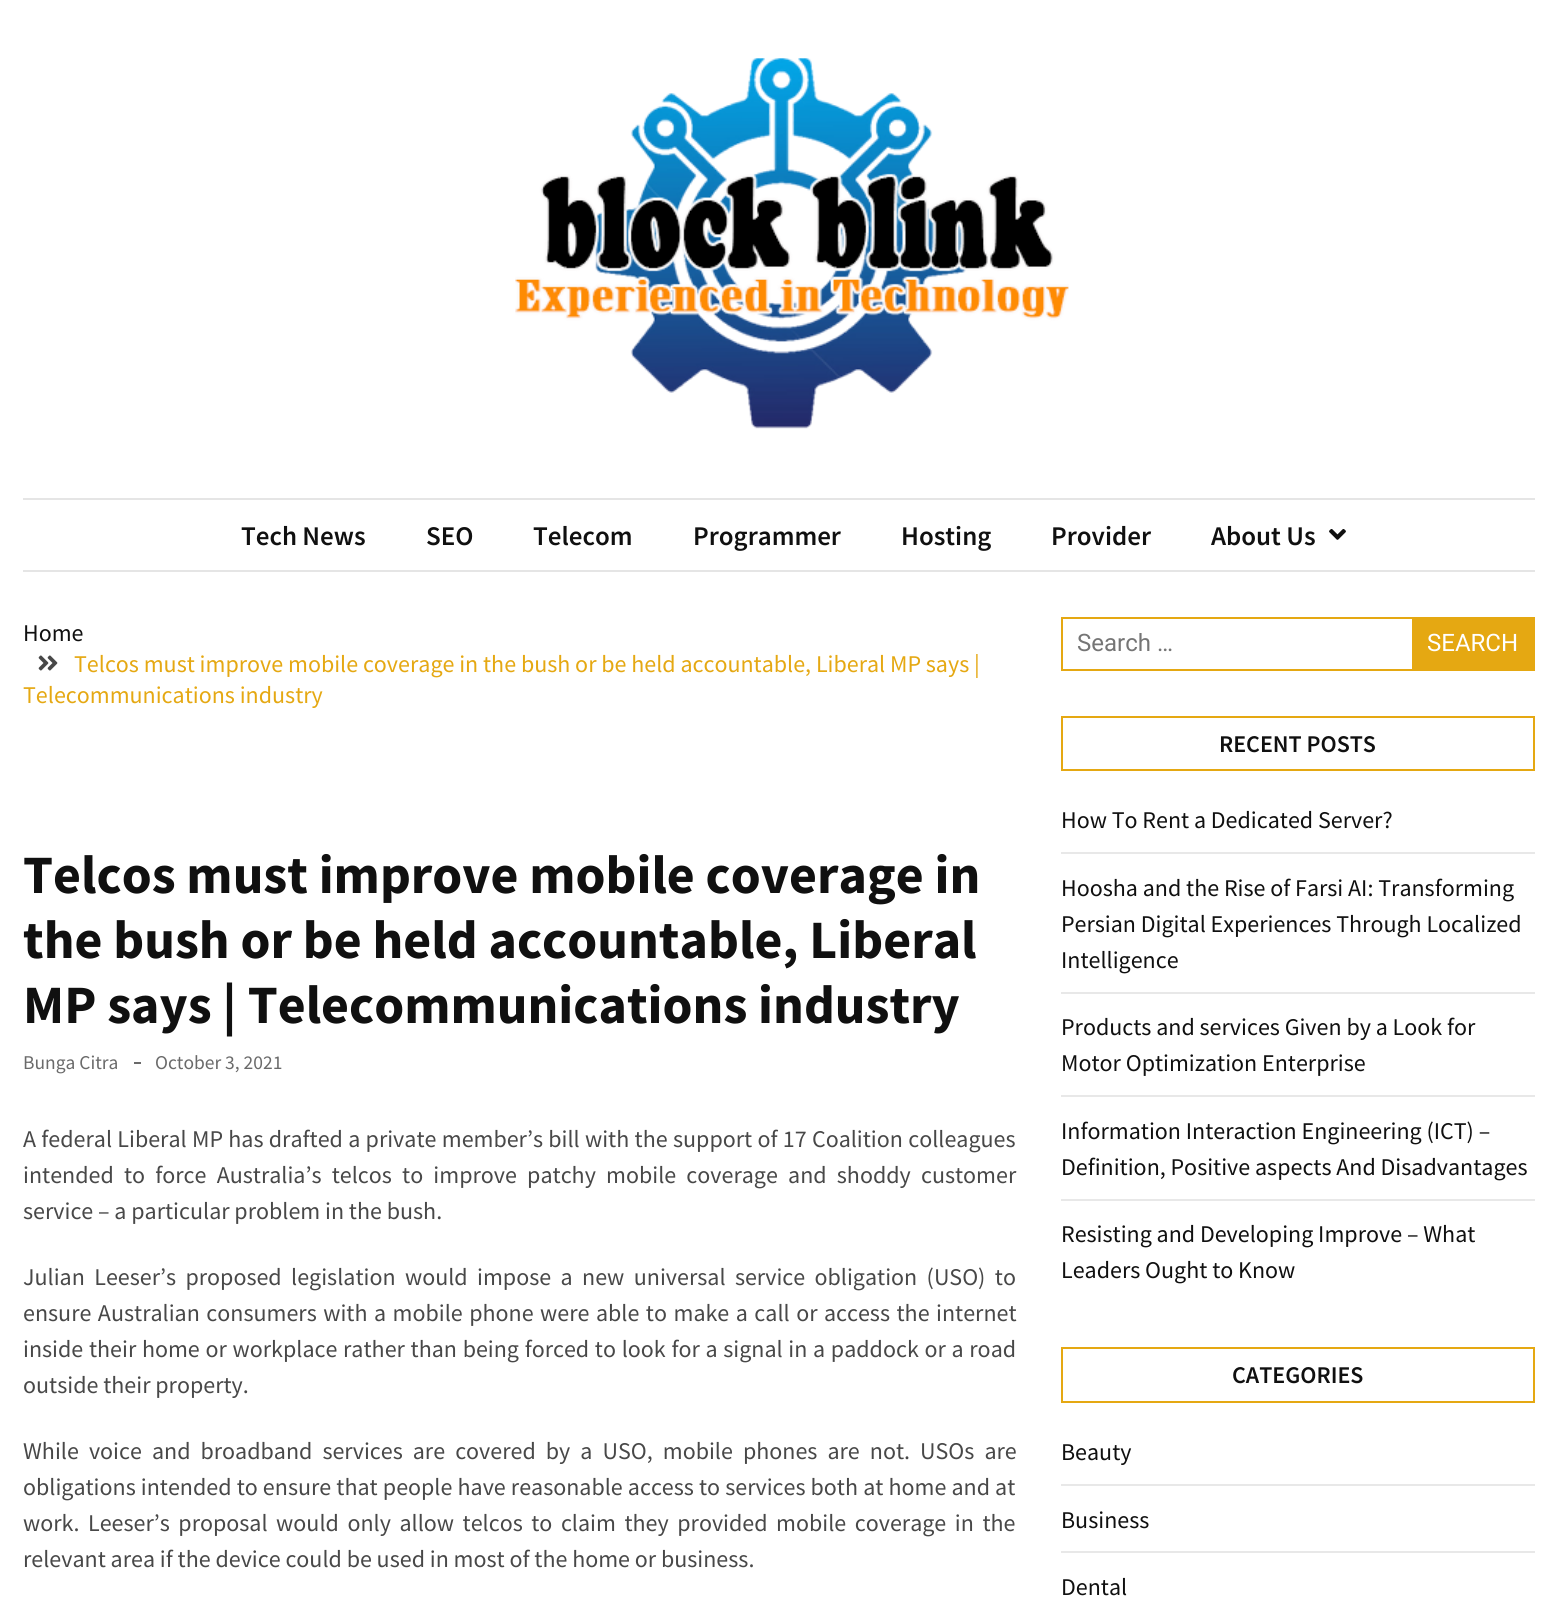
#include <cairo/cairo.h>
#include <math.h>
#include <stddef.h>

static cairo_t *cr;

static void use_color(int r, int g, int b) {
  cairo_set_source_rgb(cr, r / 255.0, g / 255.0, b / 255.0);
}

static void text(double x, double y, const char *s, const char *family, double size, int italic, int bold, int r, int g, int b) {
  cairo_select_font_face(cr, family, italic ? CAIRO_FONT_SLANT_ITALIC : CAIRO_FONT_SLANT_NORMAL,
    bold ? CAIRO_FONT_WEIGHT_BOLD : CAIRO_FONT_WEIGHT_NORMAL);
  cairo_set_font_size(cr, size);
  use_color(r, g, b);
  cairo_move_to(cr, x, y);
  cairo_show_text(cr, s);
}

static void spaced_text(double x, double y, const char *s, double letter, double word) {
  cairo_move_to(cr, x, y);
  while (*s) {
    char ch[5] = {0};
    int n = 0;
    do ch[n++] = *s++; while ((*s & 0xC0) == 0x80);
    cairo_show_text(cr, ch);
    cairo_rel_move_to(cr, letter + word * (*ch == ' '), 0);
  }
}

static void box(double x, double y, double w, double h, int r, int g, int b) {
  use_color(r, g, b);
  cairo_rectangle(cr, x, y, w, h);
  cairo_fill(cr);
}

static void picture(const char *path, double x, double y, double w, double h) {
  cairo_surface_t *image = cairo_image_surface_create_from_png(path);
  cairo_save(cr);
  cairo_set_source_surface(cr, image, x, y);
  cairo_rectangle(cr, x, y, w, h);
  cairo_fill(cr);
  cairo_restore(cr);
  cairo_surface_destroy(image);
}

static void draw(void) {
  use_color(255, 255, 255);
  cairo_paint(cr);
  picture("img_01.png", 515, 58, 554, 371);
  box(23, 498, 1512, 2, 229, 229, 229);
  box(23, 570, 1512, 2, 229, 229, 229);
  picture("img_02.png", 1329, 529, 17, 11);
  picture("img_03.png", 38, 655, 20, 16);
  box(134, 1062, 7, 2, 106, 106, 106);
  cairo_rectangle(cr, 1062, 618, 472, 52);
  use_color(229, 168, 18);
  cairo_stroke(cr);
  box(1412, 619, 121, 50, 229, 168, 18);
  cairo_rectangle(cr, 1062, 717, 472, 53);
  cairo_stroke(cr);
  box(1061, 852, 474, 2, 232, 232, 232);
  box(1061, 992, 474, 2, 232, 232, 232);
  box(1061, 1095, 474, 2, 232, 232, 232);
  box(1061, 1199, 474, 2, 232, 232, 232);
  cairo_rectangle(cr, 1062, 1348, 472, 54);
  use_color(229, 168, 18);
  cairo_stroke(cr);
  box(1061, 1484, 474, 2, 232, 232, 232);
  box(1061, 1551, 474, 2, 232, 232, 232);
  text(241, 545, "Tech News", "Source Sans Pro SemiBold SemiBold", 27, 0, 0, 16, 16, 16);
  text(426, 545, "SEO", "Source Sans Pro SemiBold SemiBold", 27, 0, 0, 16, 16, 16);
  text(533, 545, "Telecom", "Source Sans Pro SemiBold SemiBold", 27, 0, 0, 16, 16, 16);
  text(693, 545, "Programmer", "Source Sans Pro SemiBold SemiBold", 27, 0, 0, 16, 16, 16);
  text(901, 545, "Hosting", "Source Sans Pro SemiBold SemiBold", 27, 0, 0, 16, 16, 16);
  text(1051, 545, "Provider", "Source Sans Pro SemiBold SemiBold", 27, 0, 0, 16, 16, 16);
  text(1211, 545, "About Us", "Source Sans Pro SemiBold SemiBold", 27, 0, 0, 16, 16, 16);
  text(23, 641, "Home", "Source Sans Pro", 24, 0, 0, 16, 16, 16);
  text(74, 672, "Telcos must improve mobile coverage in the bush or be held accountable, Liberal MP says |", "Source Sans Pro", 24, 0, 0, 229, 168, 18);
  text(23, 703, "Telecommunications industry", "Source Sans Pro", 24, 0, 0, 229, 168, 18);
  text(23, 893, "Telcos must improve mobile coverage in", "Source Sans Pro", 54, 0, 1, 16, 16, 16);
  text(23, 958, "the bush or be held accountable, Liberal", "Source Sans Pro", 54, 0, 1, 16, 16, 16);
  text(23, 1023, "MP says | Telecommunications industry", "Source Sans Pro", 54, 0, 1, 16, 16, 16);
  text(23, 1069, "Bunga Citra", "Source Sans Pro", 19.5, 0, 0, 106, 106, 106);
  text(155, 1069, "October 3, 2021", "Source Sans Pro", 19.5, 0, 0, 106, 106, 106);
  cairo_set_font_size(cr, 24);
  use_color(72, 72, 72);
  spaced_text(23, 1147, "A federal Liberal MP has drafted a private member’s bill with the support of 17 Coalition colleagues", 0, 0.5);
  spaced_text(23, 1183, "intended to force Australia’s telcos to improve patchy mobile coverage and shoddy customer", 0, 5.4);
  text(23, 1219, "service – a particular problem in the bush.", "Source Sans Pro", 24, 0, 0, 72, 72, 72);
  spaced_text(23, 1285, "Julian Leeser’s proposed legislation would impose a new universal service obligation (USO) to", 0, 4.6);
  spaced_text(23, 1321, "ensure Australian consumers with a mobile phone were able to make a call or access the internet", 0, 1.7);
  spaced_text(23, 1357, "inside their home or workplace rather than being forced to look for a signal in a paddock or a road", 0, 0.9);
  text(23, 1393, "outside their property.", "Source Sans Pro", 24, 0, 0, 72, 72, 72);
  spaced_text(23, 1459, "While voice and broadband services are covered by a USO, mobile phones are not. USOs are", 0, 5.25);
  spaced_text(23, 1495, "obligations intended to ensure that people have reasonable access to services both at home and at", 0, 0.3);
  spaced_text(23, 1531, "work. Leeser’s proposal would only allow telcos to claim they provided mobile coverage in the", 0, 3.75);
  text(23, 1567, "relevant area if the device could be used in most of the home or business.", "Source Sans Pro", 24, 0, 0, 72, 72, 72);
  text(1077, 651, "Search …", "Roboto", 24, 0, 0, 117, 117, 117);
  text(1427, 651, "SEARCH", "Roboto", 24, 0, 0, 255, 255, 255);
  text(1219, 752, "RECENT POSTS", "Source Sans Pro SemiBold SemiBold", 24, 0, 0, 16, 16, 16);
  text(1061, 828, "How To Rent a Dedicated Server?", "Source Sans Pro", 24, 0, 0, 16, 16, 16);
  text(1061, 896, "Hoosha and the Rise of Farsi AI: Transforming", "Source Sans Pro", 24, 0, 0, 16, 16, 16);
  text(1061, 932, "Persian Digital Experiences Through Localized", "Source Sans Pro", 24, 0, 0, 16, 16, 16);
  text(1061, 968, "Intelligence", "Source Sans Pro", 24, 0, 0, 16, 16, 16);
  text(1061, 1035, "Products and services Given by a Look for", "Source Sans Pro", 24, 0, 0, 16, 16, 16);
  text(1061, 1071, "Motor Optimization Enterprise", "Source Sans Pro", 24, 0, 0, 16, 16, 16);
  text(1061, 1139, "Information Interaction Engineering (ICT) –", "Source Sans Pro", 24, 0, 0, 16, 16, 16);
  text(1061, 1175, "Definition, Positive aspects And Disadvantages", "Source Sans Pro", 24, 0, 0, 16, 16, 16);
  text(1061, 1242, "Resisting and Developing Improve – What", "Source Sans Pro", 24, 0, 0, 16, 16, 16);
  text(1061, 1278, "Leaders Ought to Know", "Source Sans Pro", 24, 0, 0, 16, 16, 16);
  text(1232, 1383, "CATEGORIES", "Source Sans Pro SemiBold SemiBold", 24, 0, 0, 16, 16, 16);
  text(1061, 1460, "Beauty", "Source Sans Pro", 24, 0, 0, 16, 16, 16);
  text(1061, 1528, "Business", "Source Sans Pro", 24, 0, 0, 16, 16, 16);
  text(1061, 1595, "Dental", "Source Sans Pro", 24, 0, 0, 16, 16, 16);
}

int main(void) {
  cairo_surface_t *surface = cairo_image_surface_create(CAIRO_FORMAT_RGB24, 1557, 1597);
  cr = cairo_create(surface);
  cairo_font_options_t *options = cairo_font_options_create();
  cairo_font_options_set_hint_metrics(options, CAIRO_HINT_METRICS_OFF);
  cairo_font_options_set_hint_style(options, CAIRO_HINT_STYLE_NONE);
  cairo_set_font_options(cr, options);
  cairo_set_miter_limit(cr, 4);
  draw();
  cairo_surface_write_to_png(surface, "out.png");
  cairo_font_options_destroy(options);
  cairo_destroy(cr);
  cairo_surface_destroy(surface);
  return 0;
}
